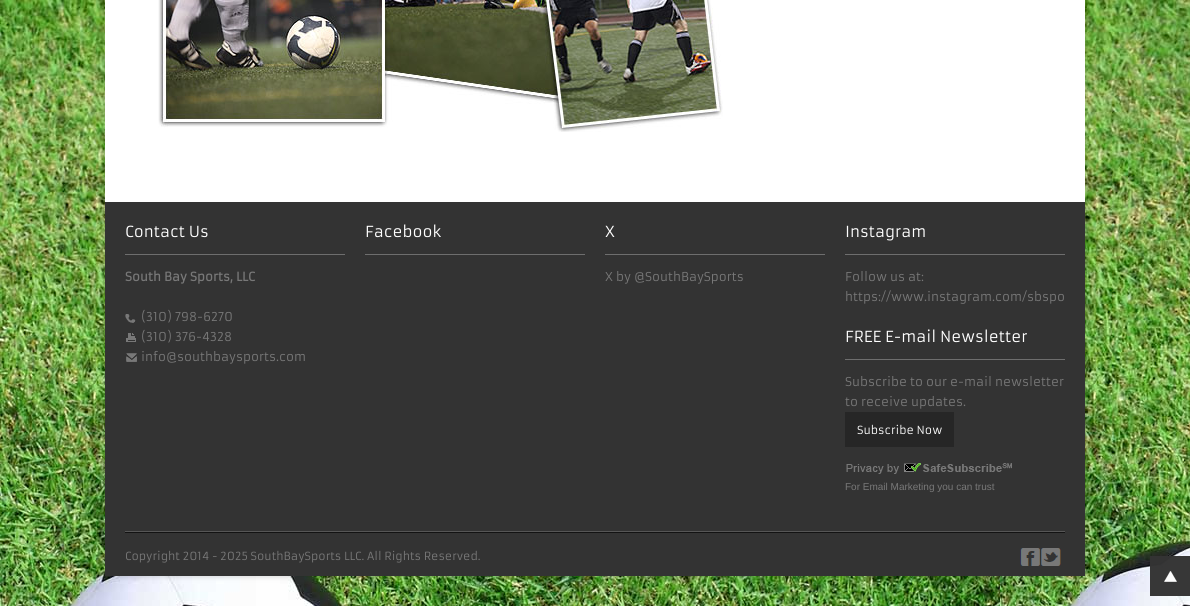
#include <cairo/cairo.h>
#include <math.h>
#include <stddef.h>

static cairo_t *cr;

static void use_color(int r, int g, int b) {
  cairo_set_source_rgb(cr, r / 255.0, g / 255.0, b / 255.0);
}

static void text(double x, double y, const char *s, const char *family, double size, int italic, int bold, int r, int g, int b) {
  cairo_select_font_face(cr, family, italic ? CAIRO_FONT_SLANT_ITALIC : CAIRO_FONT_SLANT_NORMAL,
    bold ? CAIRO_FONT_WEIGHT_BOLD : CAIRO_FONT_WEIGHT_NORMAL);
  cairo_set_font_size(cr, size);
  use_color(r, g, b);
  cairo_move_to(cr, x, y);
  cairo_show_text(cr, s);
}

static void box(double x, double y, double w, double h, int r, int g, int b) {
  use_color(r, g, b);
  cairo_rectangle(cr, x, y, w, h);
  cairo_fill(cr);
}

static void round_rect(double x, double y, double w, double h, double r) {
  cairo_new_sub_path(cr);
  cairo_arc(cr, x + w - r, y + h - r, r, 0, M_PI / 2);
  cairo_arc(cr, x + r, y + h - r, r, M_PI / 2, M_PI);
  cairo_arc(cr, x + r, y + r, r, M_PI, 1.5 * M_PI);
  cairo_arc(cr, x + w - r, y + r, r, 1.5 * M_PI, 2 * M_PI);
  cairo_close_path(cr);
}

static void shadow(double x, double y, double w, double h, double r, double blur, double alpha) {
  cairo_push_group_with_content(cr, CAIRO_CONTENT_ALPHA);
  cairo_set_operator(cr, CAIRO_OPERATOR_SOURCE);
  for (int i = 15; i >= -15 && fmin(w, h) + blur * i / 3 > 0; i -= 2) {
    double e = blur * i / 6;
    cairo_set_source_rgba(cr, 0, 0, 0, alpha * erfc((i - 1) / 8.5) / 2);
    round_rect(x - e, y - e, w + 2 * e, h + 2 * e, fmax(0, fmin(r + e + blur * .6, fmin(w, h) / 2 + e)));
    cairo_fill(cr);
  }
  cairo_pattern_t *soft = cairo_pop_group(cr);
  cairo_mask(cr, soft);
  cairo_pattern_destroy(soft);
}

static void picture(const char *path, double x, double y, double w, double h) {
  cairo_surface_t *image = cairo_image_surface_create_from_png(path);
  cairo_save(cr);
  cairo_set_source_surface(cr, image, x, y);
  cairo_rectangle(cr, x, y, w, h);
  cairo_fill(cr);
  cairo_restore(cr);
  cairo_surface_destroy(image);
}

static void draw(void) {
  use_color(255, 255, 255);
  cairo_paint(cr);
  picture("img_01.png", 0, 0, 1190, 606);
  use_color(0, 0, 0);
  shadow(105, -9, 980, 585, 0, 3, 0.2);
  box(105, 0, 980, 202, 255, 255, 255);
  picture("img_02.png", 158, 0, 565, 132);
  box(105, 202, 980, 374, 51, 51, 51);
  box(125, 254, 220, 1, 110, 110, 110);
  picture("img_03.png", 125, 314, 11, 9);
  picture("img_04.png", 126, 333, 10, 9);
  picture("img_05.png", 126, 353, 11, 9);
  box(365, 254, 220, 1, 110, 110, 110);
  box(605, 254, 220, 1, 110, 110, 110);
  box(845, 254, 220, 1, 110, 110, 110);
  box(845, 359, 220, 1, 110, 110, 110);
  box(845, 412, 109, 35, 38, 38, 38);
  picture("img_06.png", 846, 463, 166, 11);
  picture("img_07.png", 125, 531, 940, 2);
  picture("img_08.png", 1020, 548, 20, 18);
  picture("img_09.png", 1040, 548, 21, 18);
  cairo_set_source_rgba(cr, 0.2, 0.2, 0.2, 0.98);
  cairo_rectangle(cr, 1150, 556, 40, 40);
  cairo_fill(cr);
  picture("img_10.png", 1164, 571, 13, 11);
  text(125, 237, "Contact Us", "Armata", 15, 0, 0, 255, 255, 255);
  text(125, 281, "South Bay Sports, LLC", "Armata", 12, 0, 1, 120, 120, 120);
  text(141, 321, "(310) 798-6270", "Armata", 12, 0, 0, 120, 120, 120);
  text(141, 341, "(310) 376-4328", "Armata", 12, 0, 0, 120, 120, 120);
  text(141, 361, "info@southbaysports.com", "Armata", 12, 0, 0, 120, 120, 120);
  text(365, 237, "Facebook", "Armata", 15, 0, 0, 255, 255, 255);
  text(605, 237, "X", "Armata", 15, 0, 0, 255, 255, 255);
  text(605, 281, "X by @SouthBaySports", "Armata", 12, 0, 0, 120, 120, 120);
  text(845, 237, "Instagram", "Armata", 15, 0, 0, 255, 255, 255);
  text(845, 281, "Follow us at:", "Armata", 12, 0, 0, 120, 120, 120);
  text(845, 301, "https://www.instagram.com/sbspo", "Armata", 12, 0, 0, 120, 120, 120);
  text(845, 342, "FREE E-mail Newsletter", "Armata", 15, 0, 0, 255, 255, 255);
  text(845, 386, "Subscribe to our e-mail newsletter", "Armata", 12, 0, 0, 120, 120, 120);
  text(845, 406, "to receive updates.", "Armata", 12, 0, 0, 120, 120, 120);
  text(857, 434, "Subscribe Now", "Armata", 11, 0, 0, 255, 255, 255);
  text(845, 490, "For Email Marketing you can trust", "Liberation Sans", 10, 0, 0, 120, 120, 120);
  text(125, 560, "Copyright 2014 - 2025 SouthBaySports LLC. All Rights Reserved.", "Armata", 11, 0, 0, 120, 120, 120);
}

int main(void) {
  cairo_surface_t *surface = cairo_image_surface_create(CAIRO_FORMAT_RGB24, 1190, 606);
  cr = cairo_create(surface);
  cairo_font_options_t *options = cairo_font_options_create();
  cairo_font_options_set_hint_metrics(options, CAIRO_HINT_METRICS_OFF);
  cairo_font_options_set_hint_style(options, CAIRO_HINT_STYLE_NONE);
  cairo_set_font_options(cr, options);
  cairo_set_miter_limit(cr, 4);
  draw();
  cairo_surface_write_to_png(surface, "out.png");
  cairo_font_options_destroy(options);
  cairo_destroy(cr);
  cairo_surface_destroy(surface);
  return 0;
}
